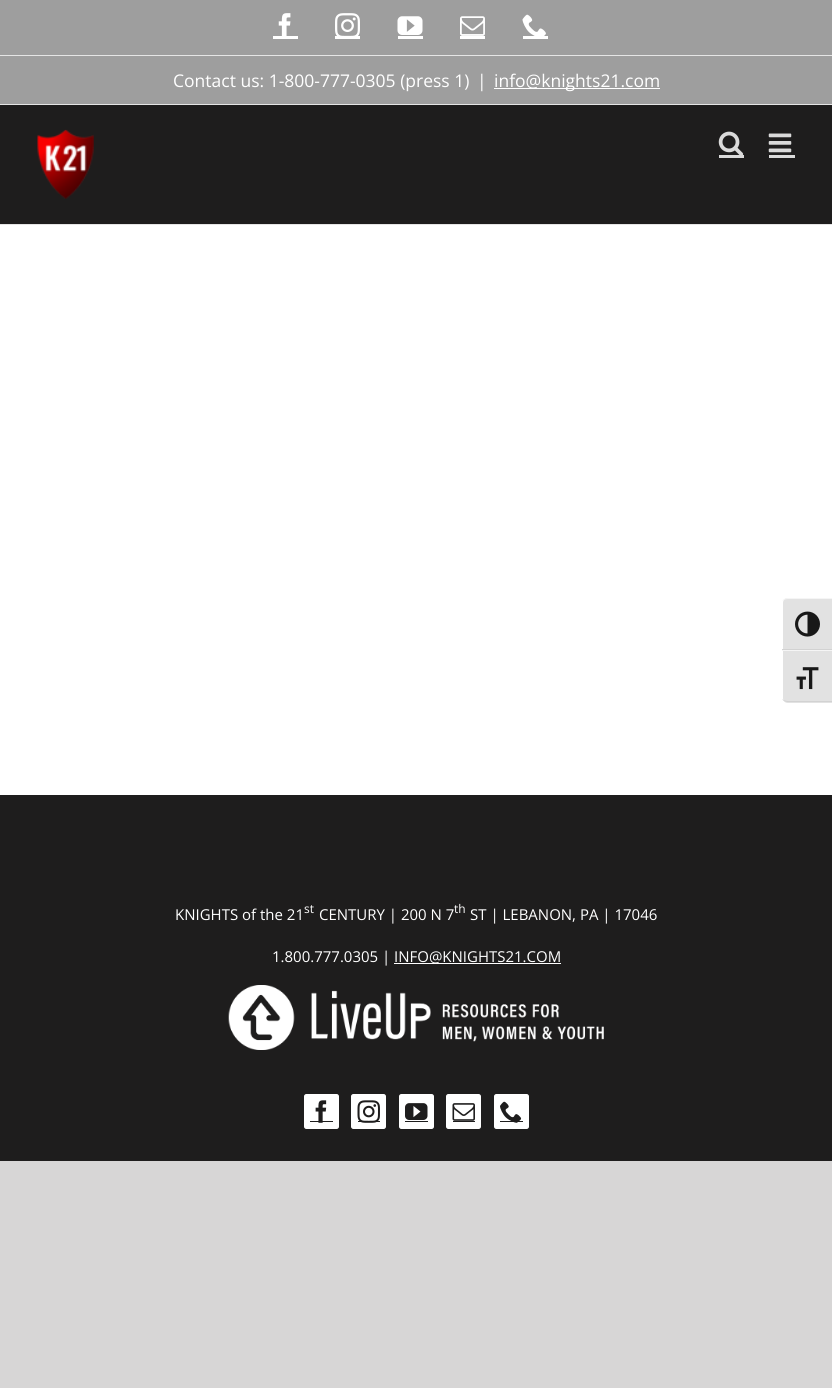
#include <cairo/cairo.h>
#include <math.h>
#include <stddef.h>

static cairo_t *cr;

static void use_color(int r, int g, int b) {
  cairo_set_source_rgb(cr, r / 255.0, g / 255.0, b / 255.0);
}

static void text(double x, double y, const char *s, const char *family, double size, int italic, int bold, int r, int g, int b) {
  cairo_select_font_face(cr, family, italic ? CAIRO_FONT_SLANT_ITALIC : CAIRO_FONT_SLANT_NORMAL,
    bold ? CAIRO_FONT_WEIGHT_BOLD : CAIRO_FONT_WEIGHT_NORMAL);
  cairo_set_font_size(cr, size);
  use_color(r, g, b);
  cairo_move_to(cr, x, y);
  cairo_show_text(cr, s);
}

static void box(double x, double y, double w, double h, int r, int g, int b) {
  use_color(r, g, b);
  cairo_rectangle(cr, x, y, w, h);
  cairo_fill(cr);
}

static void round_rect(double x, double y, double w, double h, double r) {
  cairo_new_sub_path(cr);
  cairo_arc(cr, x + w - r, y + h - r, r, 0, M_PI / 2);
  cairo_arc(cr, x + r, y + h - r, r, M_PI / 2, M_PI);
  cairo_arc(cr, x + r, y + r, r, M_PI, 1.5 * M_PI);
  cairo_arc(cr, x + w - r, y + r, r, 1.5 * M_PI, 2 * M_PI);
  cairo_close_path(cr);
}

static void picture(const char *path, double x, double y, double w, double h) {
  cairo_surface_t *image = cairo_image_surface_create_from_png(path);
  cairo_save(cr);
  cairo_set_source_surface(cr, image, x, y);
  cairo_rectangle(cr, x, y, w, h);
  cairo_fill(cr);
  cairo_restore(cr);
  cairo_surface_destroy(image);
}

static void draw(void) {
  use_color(215, 214, 214);
  cairo_paint(cr);
  box(0, 225, 832, 570, 255, 255, 255);
  box(0, 0, 832, 104, 158, 158, 158);
  box(0, 104, 832, 1, 229, 229, 229);
  box(0, 55, 832, 1, 229, 229, 229);
  picture("img_01.png", 278, 13, 13, 23);
  box(273, 36, 25, 3, 255, 255, 255);
  picture("img_02.png", 335, 13, 25, 23);
  box(335, 36, 25, 3, 255, 255, 255);
  picture("img_03.png", 397, 16, 26, 19);
  box(398, 36, 25, 3, 255, 255, 255);
  picture("img_04.png", 460, 16, 25, 20);
  box(460, 36, 25, 3, 255, 255, 255);
  picture("img_05.png", 522, 14, 24, 22);
  box(523, 36, 25, 3, 255, 255, 255);
  box(494, 88, 166, 1, 255, 255, 255);
  box(0, 105, 832, 119, 30, 29, 29);
  box(0, 224, 832, 1, 229, 229, 229);
  picture("img_06.png", 37, 129, 57, 70);
  picture("img_07.png", 718, 131, 26, 24);
  box(719, 155, 25, 3, 218, 218, 218);
  picture("img_08.png", 768, 133, 24, 20);
  box(769, 155, 26, 3, 218, 218, 218);
  box(0, 795, 832, 366, 30, 29, 29);
  box(394, 963, 167, 1, 255, 255, 255);
  picture("img_09.png", 228, 985, 376, 65);
  round_rect(304.5, 1094.5, 34, 34, 2);
  cairo_fill_preserve(cr);
  cairo_set_line_width(cr, 1);
  cairo_stroke(cr);
  box(310, 1121, 23, 1, 30, 29, 29);
  picture("img_10.png", 315, 1100, 12, 23);
  use_color(255, 255, 255);
  round_rect(351.5, 1094.5, 34, 34, 2);
  cairo_fill_preserve(cr);
  cairo_stroke(cr);
  box(358, 1121, 22, 1, 30, 29, 29);
  picture("img_11.png", 357, 1100, 23, 23);
  use_color(255, 255, 255);
  round_rect(399.5, 1094.5, 34, 34, 2);
  cairo_fill_preserve(cr);
  cairo_stroke(cr);
  box(405, 1121, 23, 1, 30, 29, 29);
  picture("img_12.png", 405, 1103, 23, 17);
  use_color(255, 255, 255);
  round_rect(446.5, 1094.5, 34, 34, 2);
  cairo_fill_preserve(cr);
  cairo_stroke(cr);
  box(453, 1121, 22, 1, 30, 29, 29);
  picture("img_13.png", 452, 1103, 23, 18);
  use_color(255, 255, 255);
  round_rect(494.5, 1094.5, 34, 34, 2);
  cairo_fill_preserve(cr);
  cairo_stroke(cr);
  box(500, 1121, 23, 1, 30, 29, 29);
  picture("img_14.png", 500, 1101, 22, 22);
  use_color(226, 226, 226);
  cairo_new_path(cr);
  cairo_move_to(cr, 788, 598);
  cairo_line_to(cr, 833, 598);
  cairo_line_to(cr, 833, 650);
  cairo_line_to(cr, 783, 650);
  cairo_line_to(cr, 783, 603);
  cairo_curve_to(cr, 783, 600, 785, 598, 788, 598);
  cairo_close_path(cr);
  cairo_fill(cr);
  use_color(245, 245, 245);
  cairo_new_path(cr);
  cairo_move_to(cr, 788, 598);
  cairo_line_to(cr, 832, 598);
  cairo_line_to(cr, 832, 599);
  cairo_line_to(cr, 788, 599);
  cairo_curve_to(cr, 786, 599, 783, 600, 782, 601);
  cairo_curve_to(cr, 783, 599, 786, 598, 788, 598);
  cairo_close_path(cr);
  cairo_fill(cr);
  box(782, 649, 50, 1, 210, 210, 210);
  picture("img_15.png", 795, 611, 25, 26);
  use_color(226, 226, 226);
  cairo_new_path(cr);
  cairo_move_to(cr, 783, 650);
  cairo_line_to(cr, 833, 650);
  cairo_line_to(cr, 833, 703);
  cairo_line_to(cr, 788, 703);
  cairo_curve_to(cr, 785, 703, 783, 701, 783, 698);
  cairo_close_path(cr);
  cairo_fill(cr);
  box(782, 650, 50, 1, 245, 245, 245);
  use_color(210, 210, 210);
  cairo_new_path(cr);
  cairo_move_to(cr, 832, 702);
  cairo_line_to(cr, 832, 701);
  cairo_line_to(cr, 788, 701);
  cairo_curve_to(cr, 786, 701, 783, 700, 782, 699);
  cairo_curve_to(cr, 783, 701, 786, 702, 788, 702);
  cairo_close_path(cr);
  cairo_fill(cr);
  picture("img_16.png", 796, 667, 23, 23);
  text(173, 87, "Contact us: 1-800-777-0305 (press 1)", "Open Sans", 17.5, 0, 0, 255, 255, 255);
  text(477, 87, "|", "Open Sans", 17.5, 0, 0, 255, 255, 255);
  text(494, 87, "info@knights21.com", "Open Sans", 17.5, 0, 0, 255, 255, 255);
  text(175, 920, "KNIGHTS of the 21", "Open Sans", 15, 0, 0, 255, 255, 255);
  text(304, 913, "st", "Open Sans", 12, 0, 0, 255, 255, 255);
  text(319, 920, "CENTURY | 200 N 7", "Open Sans", 15, 0, 0, 255, 255, 255);
  text(454, 913, "th", "Open Sans", 12, 0, 0, 255, 255, 255);
  text(470, 920, "ST | LEBANON, PA | 17046", "Open Sans", 15, 0, 0, 255, 255, 255);
  text(272, 962, "1.800.777.0305 |", "Open Sans", 15, 0, 0, 255, 255, 255);
  text(394, 962, "INFO@KNIGHTS21.COM", "Open Sans", 15, 0, 0, 255, 255, 255);
}

int main(void) {
  cairo_surface_t *surface = cairo_image_surface_create(CAIRO_FORMAT_RGB24, 832, 1388);
  cr = cairo_create(surface);
  cairo_font_options_t *options = cairo_font_options_create();
  cairo_font_options_set_hint_metrics(options, CAIRO_HINT_METRICS_OFF);
  cairo_font_options_set_hint_style(options, CAIRO_HINT_STYLE_NONE);
  cairo_set_font_options(cr, options);
  cairo_set_miter_limit(cr, 4);
  draw();
  cairo_surface_write_to_png(surface, "out.png");
  cairo_font_options_destroy(options);
  cairo_destroy(cr);
  cairo_surface_destroy(surface);
  return 0;
}
